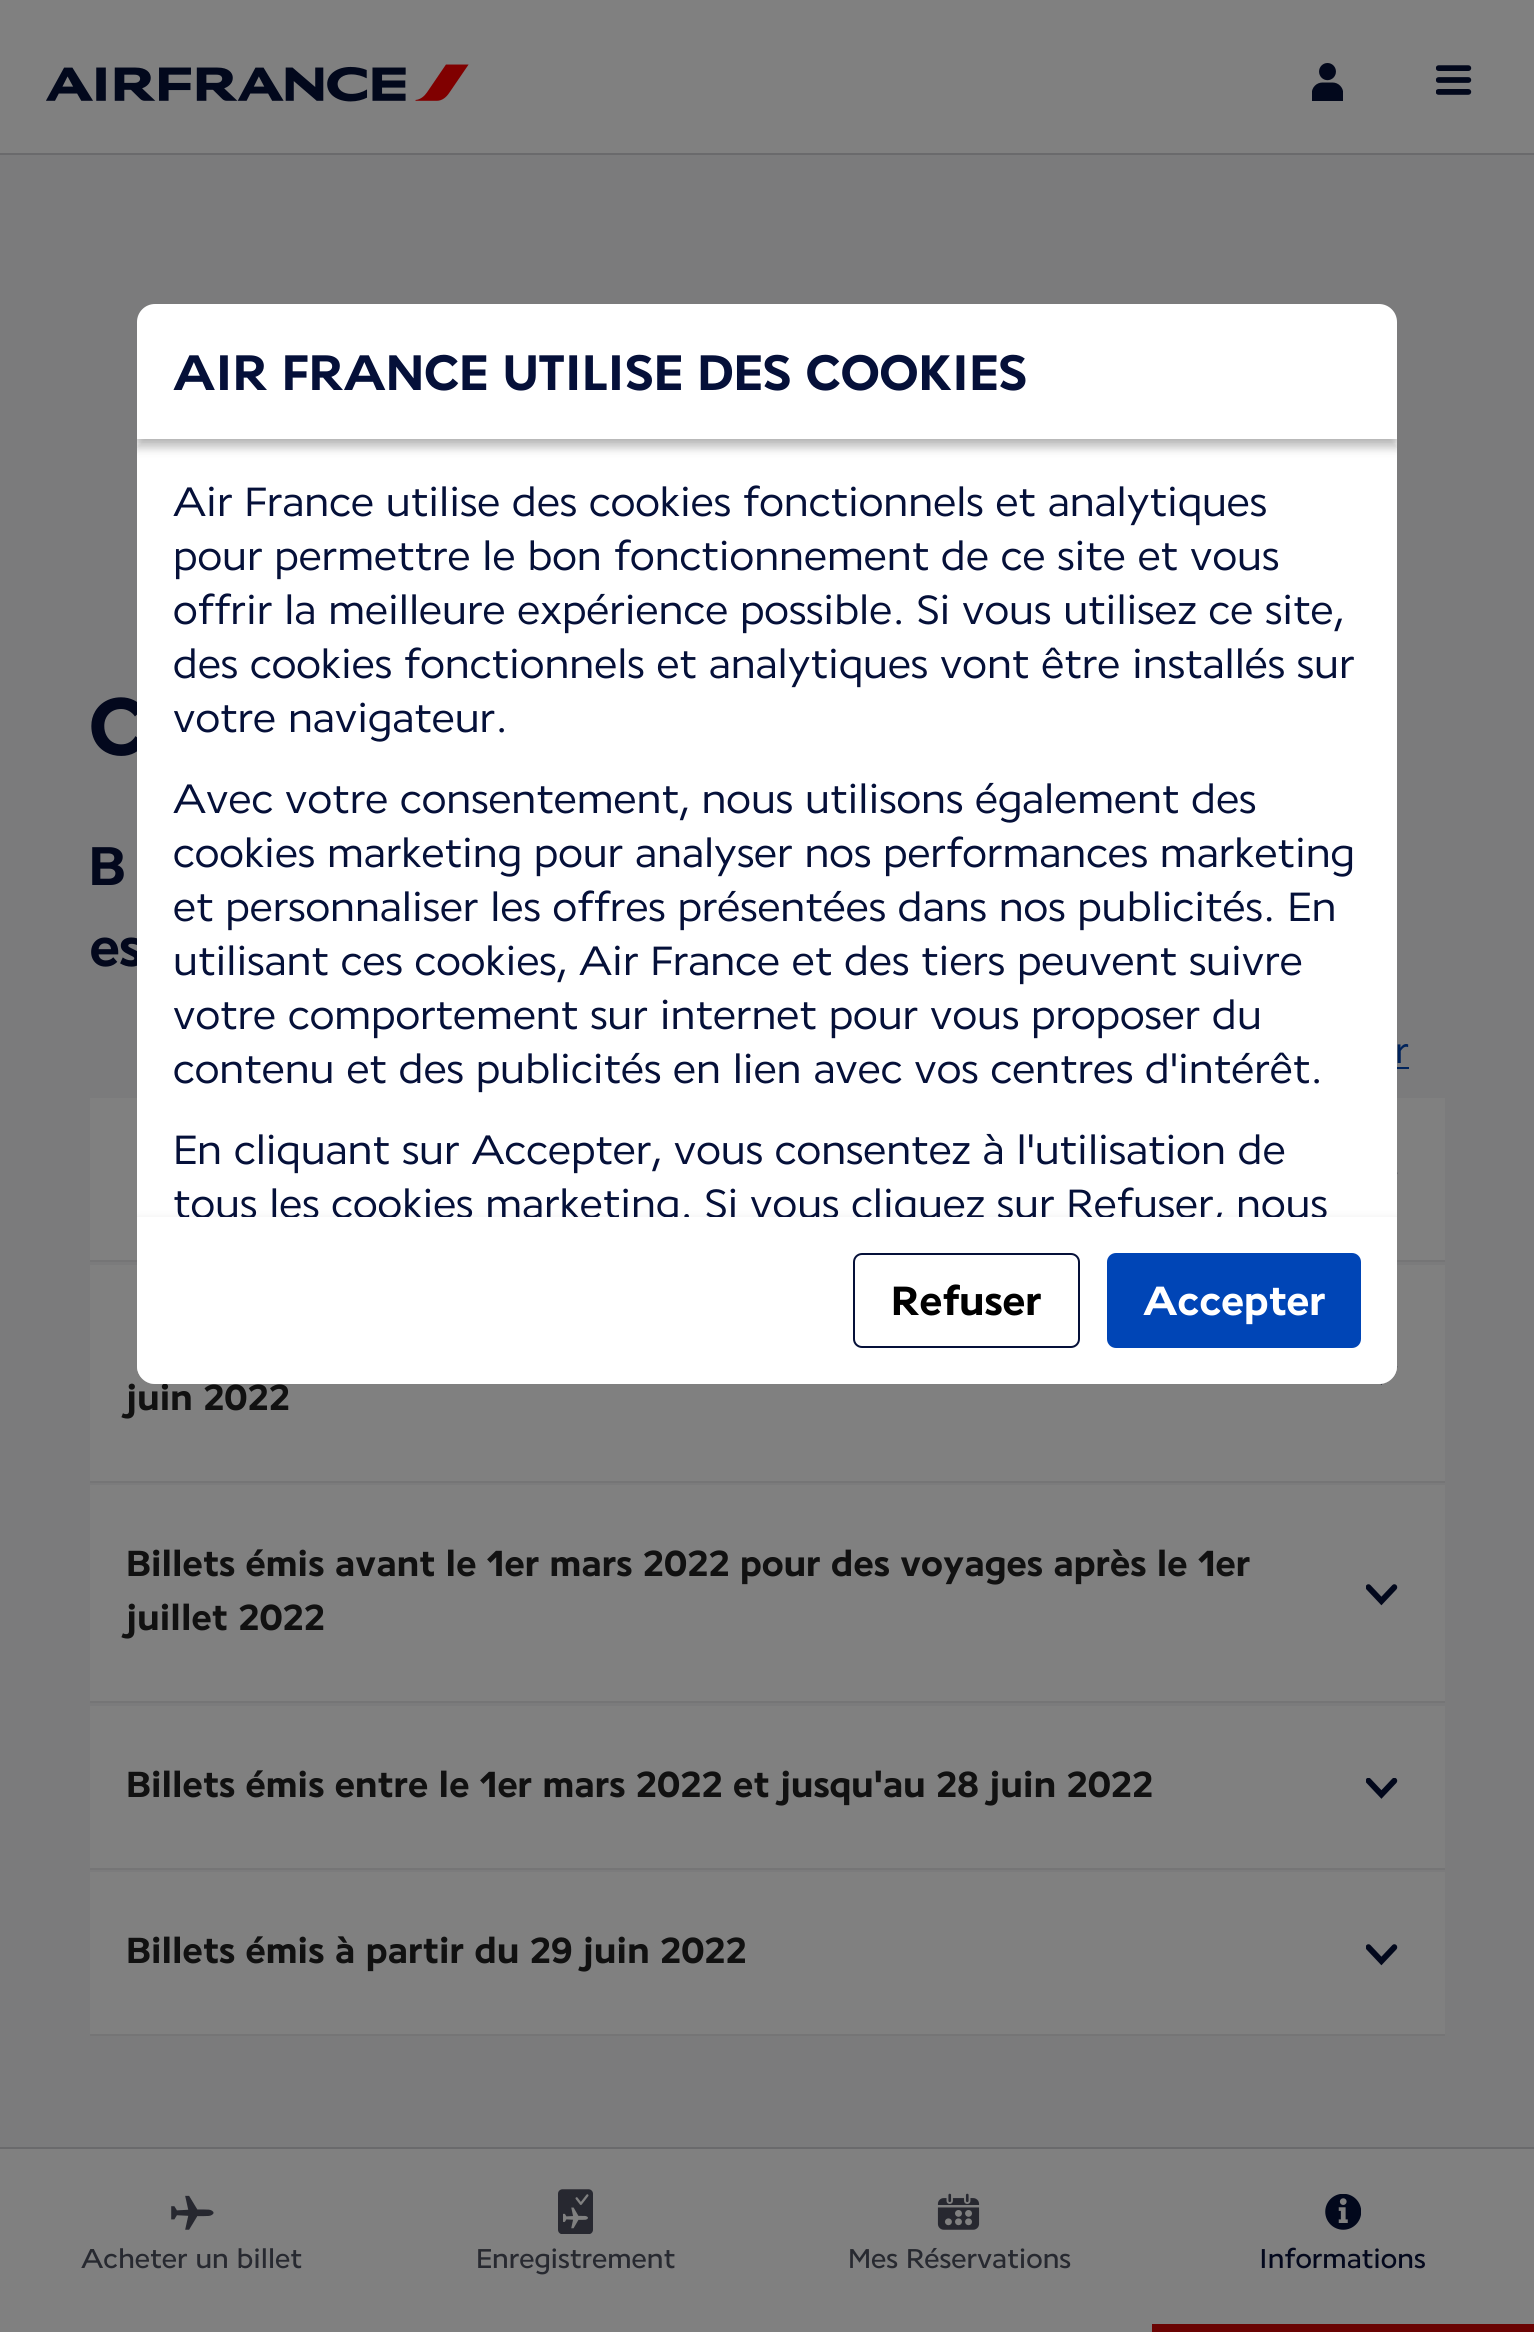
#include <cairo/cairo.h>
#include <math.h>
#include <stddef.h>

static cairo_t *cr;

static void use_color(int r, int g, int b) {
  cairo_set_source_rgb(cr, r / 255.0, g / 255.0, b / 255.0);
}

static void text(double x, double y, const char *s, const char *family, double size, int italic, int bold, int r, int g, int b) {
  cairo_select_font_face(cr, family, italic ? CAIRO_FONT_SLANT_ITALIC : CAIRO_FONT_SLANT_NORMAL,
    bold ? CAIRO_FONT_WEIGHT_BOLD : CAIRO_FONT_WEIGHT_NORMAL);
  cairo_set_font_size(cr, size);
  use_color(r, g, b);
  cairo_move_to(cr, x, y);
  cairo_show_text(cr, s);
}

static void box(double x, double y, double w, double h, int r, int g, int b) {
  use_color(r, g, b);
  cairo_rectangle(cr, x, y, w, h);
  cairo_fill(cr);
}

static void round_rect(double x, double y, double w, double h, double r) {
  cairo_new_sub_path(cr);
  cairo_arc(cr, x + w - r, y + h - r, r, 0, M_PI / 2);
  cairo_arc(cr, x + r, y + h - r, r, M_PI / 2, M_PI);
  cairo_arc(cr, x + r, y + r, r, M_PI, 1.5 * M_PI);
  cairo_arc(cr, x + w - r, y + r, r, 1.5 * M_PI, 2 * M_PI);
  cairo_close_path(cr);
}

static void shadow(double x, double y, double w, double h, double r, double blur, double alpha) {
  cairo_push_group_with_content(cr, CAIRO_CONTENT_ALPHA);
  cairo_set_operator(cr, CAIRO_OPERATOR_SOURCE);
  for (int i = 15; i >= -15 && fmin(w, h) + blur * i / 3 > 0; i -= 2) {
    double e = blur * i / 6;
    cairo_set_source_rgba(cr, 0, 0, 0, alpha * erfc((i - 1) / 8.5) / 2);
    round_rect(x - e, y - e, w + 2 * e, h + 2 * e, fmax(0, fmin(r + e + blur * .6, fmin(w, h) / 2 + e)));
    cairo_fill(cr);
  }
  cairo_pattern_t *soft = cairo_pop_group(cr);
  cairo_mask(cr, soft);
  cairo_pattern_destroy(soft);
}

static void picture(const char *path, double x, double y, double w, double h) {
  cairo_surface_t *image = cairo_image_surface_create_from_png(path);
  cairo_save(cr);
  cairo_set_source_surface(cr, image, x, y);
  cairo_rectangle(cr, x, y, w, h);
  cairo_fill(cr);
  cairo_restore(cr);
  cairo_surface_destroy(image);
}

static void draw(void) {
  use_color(123, 123, 124);
  cairo_paint(cr);
  box(0, 0, 1534, 153, 128, 128, 128);
  box(0, 153, 1534, 2, 106, 106, 108);
  picture("img_01.png", 46, 64, 423, 38);
  picture("img_02.png", 1312, 63, 31, 38);
  picture("img_03.png", 1436, 65, 36, 30);
  box(1397, 1067, 12, 2, 0, 35, 91);
  box(90, 1098, 1355, 162, 128, 128, 128);
  box(90, 1260, 1355, 2, 117, 117, 118);
  picture("img_04.png", 1397, 1172, 1, 3);
  box(90, 1265, 1355, 216, 128, 128, 128);
  box(90, 1481, 1355, 2, 117, 117, 118);
  picture("img_05.png", 1379, 1366, 19, 19);
  box(90, 1485, 1355, 216, 128, 128, 128);
  box(90, 1701, 1355, 2, 117, 117, 118);
  picture("img_06.png", 1366, 1584, 32, 22);
  box(90, 1706, 1355, 162, 128, 128, 128);
  box(90, 1868, 1355, 2, 117, 117, 118);
  picture("img_07.png", 1366, 1778, 32, 21);
  box(90, 1872, 1355, 162, 128, 128, 128);
  box(90, 2034, 1355, 2, 117, 117, 118);
  picture("img_06.png", 1366, 1944, 32, 22);
  box(0, 2149, 1534, 183, 128, 128, 128);
  box(0, 2147, 1534, 2, 106, 106, 108);
  picture("img_08.png", 171, 2195, 43, 35);
  picture("img_09.png", 558, 2189, 35, 45);
  picture("img_10.png", 937, 2193, 43, 37);
  picture("img_11.png", 1325, 2194, 36, 36);
  box(1152, 2324, 382, 8, 106, 3, 2);
  text(90, 755, "C", "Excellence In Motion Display", 81, 0, 1, 3, 8, 29);
  text(90, 885, "B", "Excellence In Motion Display", 54, 0, 1, 3, 8, 29);
  text(90, 966, "es", "Excellence In Motion Display", 54, 0, 1, 3, 8, 29);
  text(1395, 1063, "r", "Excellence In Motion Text", 36, 0, 0, 0, 35, 91);
  text(126, 1410, "juin 2022", "Excellence In Motion Text", 36, 0, 1, 17, 17, 17);
  use_color(255, 255, 255);
  round_rect(137, 304, 1260, 1080, 18);
  cairo_fill(cr);
  cairo_save(cr);
  round_rect(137, 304, 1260, 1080, 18);
  cairo_clip(cr);
  use_color(0, 0, 0);
  shadow(137, 1222, 1260, 166, 0, 2, 0.14);
  shadow(137, 1220, 1260, 166, 0, 5.5, 0.12);
  cairo_restore(cr);
  cairo_save(cr);
  cairo_rectangle(cr, 137, 439, 1260, 778);
  cairo_clip(cr);
  text(173, 1218, "tous les cookies marketing. Si vous cliquez sur Refuser, nous", "Excellence In Motion Text", 40.5, 0, 0, 5, 16, 57);
  cairo_restore(cr);
  text(173, 1164, "En cliquant sur Accepter, vous consentez à l'utilisation de", "Excellence In Motion Text", 40.5, 0, 0, 5, 16, 57);
  text(173, 1083, "contenu et des publicités en lien avec vos centres d'intérêt.", "Excellence In Motion Text", 40.5, 0, 0, 5, 16, 57);
  text(173, 1029, "votre comportement sur internet pour vous proposer du", "Excellence In Motion Text", 40.5, 0, 0, 5, 16, 57);
  text(173, 975, "utilisant ces cookies, Air France et des tiers peuvent suivre", "Excellence In Motion Text", 40.5, 0, 0, 5, 16, 57);
  text(173, 921, "et personnaliser les offres présentées dans nos publicités. En", "Excellence In Motion Text", 40.5, 0, 0, 5, 16, 57);
  text(173, 867, "cookies marketing pour analyser nos performances marketing", "Excellence In Motion Text", 40.5, 0, 0, 5, 16, 57);
  text(173, 813, "Avec votre consentement, nous utilisons également des", "Excellence In Motion Text", 40.5, 0, 0, 5, 16, 57);
  text(173, 732, "votre navigateur.", "Excellence In Motion Text", 40.5, 0, 0, 5, 16, 57);
  text(173, 678, "des cookies fonctionnels et analytiques vont être installés sur", "Excellence In Motion Text", 40.5, 0, 0, 5, 16, 57);
  text(173, 624, "offrir la meilleure expérience possible. Si vous utilisez ce site,", "Excellence In Motion Text", 40.5, 0, 0, 5, 16, 57);
  text(173, 570, "pour permettre le bon fonctionnement de ce site et vous", "Excellence In Motion Text", 40.5, 0, 0, 5, 16, 57);
  text(173, 516, "Air France utilise des cookies fonctionnels et analytiques", "Excellence In Motion Text", 40.5, 0, 0, 5, 16, 57);
  cairo_save(cr);
  round_rect(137, 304, 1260, 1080, 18);
  cairo_clip(cr);
  use_color(0, 0, 0);
  shadow(142, 1229, 1251, 157, 0, 1, 0.2);
  cairo_restore(cr);
  use_color(255, 255, 255);
  cairo_new_path(cr);
  cairo_move_to(cr, 137, 1217);
  cairo_line_to(cr, 1397, 1217);
  cairo_line_to(cr, 1397, 1366);
  cairo_curve_to(cr, 1397, 1376, 1389, 1384, 1379, 1384);
  cairo_line_to(cr, 155, 1384);
  cairo_curve_to(cr, 145, 1384, 137, 1376, 137, 1366);
  cairo_close_path(cr);
  cairo_fill(cr);
  use_color(0, 69, 182);
  round_rect(1107, 1253, 254, 95, 9);
  cairo_fill(cr);
  text(1143, 1315, "Accepter", "Excellence In Motion Text", 40.5, 0, 1, 255, 255, 255);
  round_rect(854, 1254, 225, 93, 8);
  use_color(5, 16, 57);
  cairo_stroke(cr);
  text(891, 1315, "Refuser", "Excellence In Motion Text", 40.5, 0, 1, 0, 0, 0);
  cairo_save(cr);
  round_rect(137, 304, 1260, 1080, 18);
  cairo_clip(cr);
  cairo_set_fill_rule(cr, CAIRO_FILL_RULE_EVEN_ODD);
  cairo_new_path(cr);
  cairo_move_to(cr, 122, 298);
  cairo_line_to(cr, 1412, 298);
  cairo_line_to(cr, 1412, 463);
  cairo_line_to(cr, 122, 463);
  cairo_close_path(cr);
  cairo_move_to(cr, 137, 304);
  cairo_line_to(cr, 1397, 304);
  cairo_line_to(cr, 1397, 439);
  cairo_line_to(cr, 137, 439);
  cairo_close_path(cr);
  cairo_clip(cr);
  use_color(0, 0, 0);
  shadow(137, 313, 1260, 135, 0, 4.5, 0.24);
  cairo_restore(cr);
  cairo_save(cr);
  round_rect(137, 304, 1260, 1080, 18);
  cairo_clip(cr);
  cairo_rectangle(cr, 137, 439, 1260, 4);
  cairo_clip(cr);
  use_color(0, 0, 0);
  shadow(137, 304, 1260, 135, 0, 4.5, 0.12);
  cairo_restore(cr);
  text(173, 390, "AIR FRANCE UTILISE DES COOKIES", "Excellence In Motion Text", 49.5, 0, 1, 5, 16, 57);
  text(126, 1576, "Billets émis avant le 1er mars 2022 pour des voyages après le 1er", "Excellence In Motion Text", 36, 0, 1, 17, 17, 17);
  text(126, 1630, "juillet 2022", "Excellence In Motion Text", 36, 0, 1, 17, 17, 17);
  text(126, 1797, "Billets émis entre le 1er mars 2022 et jusqu'au 28 juin 2022", "Excellence In Motion Text", 36, 0, 1, 17, 17, 17);
  text(126, 1963, "Billets émis à partir du 29 juin 2022", "Excellence In Motion Text", 36, 0, 1, 17, 17, 17);
  text(81, 2268, "Acheter un billet", "Excellence In Motion Text Medium", 27, 0, 0, 39, 41, 48);
  text(476, 2268, "Enregistrement", "Excellence In Motion Text Medium", 27, 0, 0, 39, 41, 48);
  text(848, 2268, "Mes Réservations", "Excellence In Motion Text Medium", 27, 0, 0, 39, 41, 48);
  text(1259, 2268, "Informations", "Excellence In Motion Text Medium", 27, 0, 0, 3, 8, 29);
}

int main(void) {
  cairo_surface_t *surface = cairo_image_surface_create(CAIRO_FORMAT_RGB24, 1534, 2332);
  cr = cairo_create(surface);
  cairo_font_options_t *options = cairo_font_options_create();
  cairo_font_options_set_hint_metrics(options, CAIRO_HINT_METRICS_OFF);
  cairo_font_options_set_hint_style(options, CAIRO_HINT_STYLE_NONE);
  cairo_set_font_options(cr, options);
  cairo_set_miter_limit(cr, 4);
  draw();
  cairo_surface_write_to_png(surface, "out.png");
  cairo_font_options_destroy(options);
  cairo_destroy(cr);
  cairo_surface_destroy(surface);
  return 0;
}
